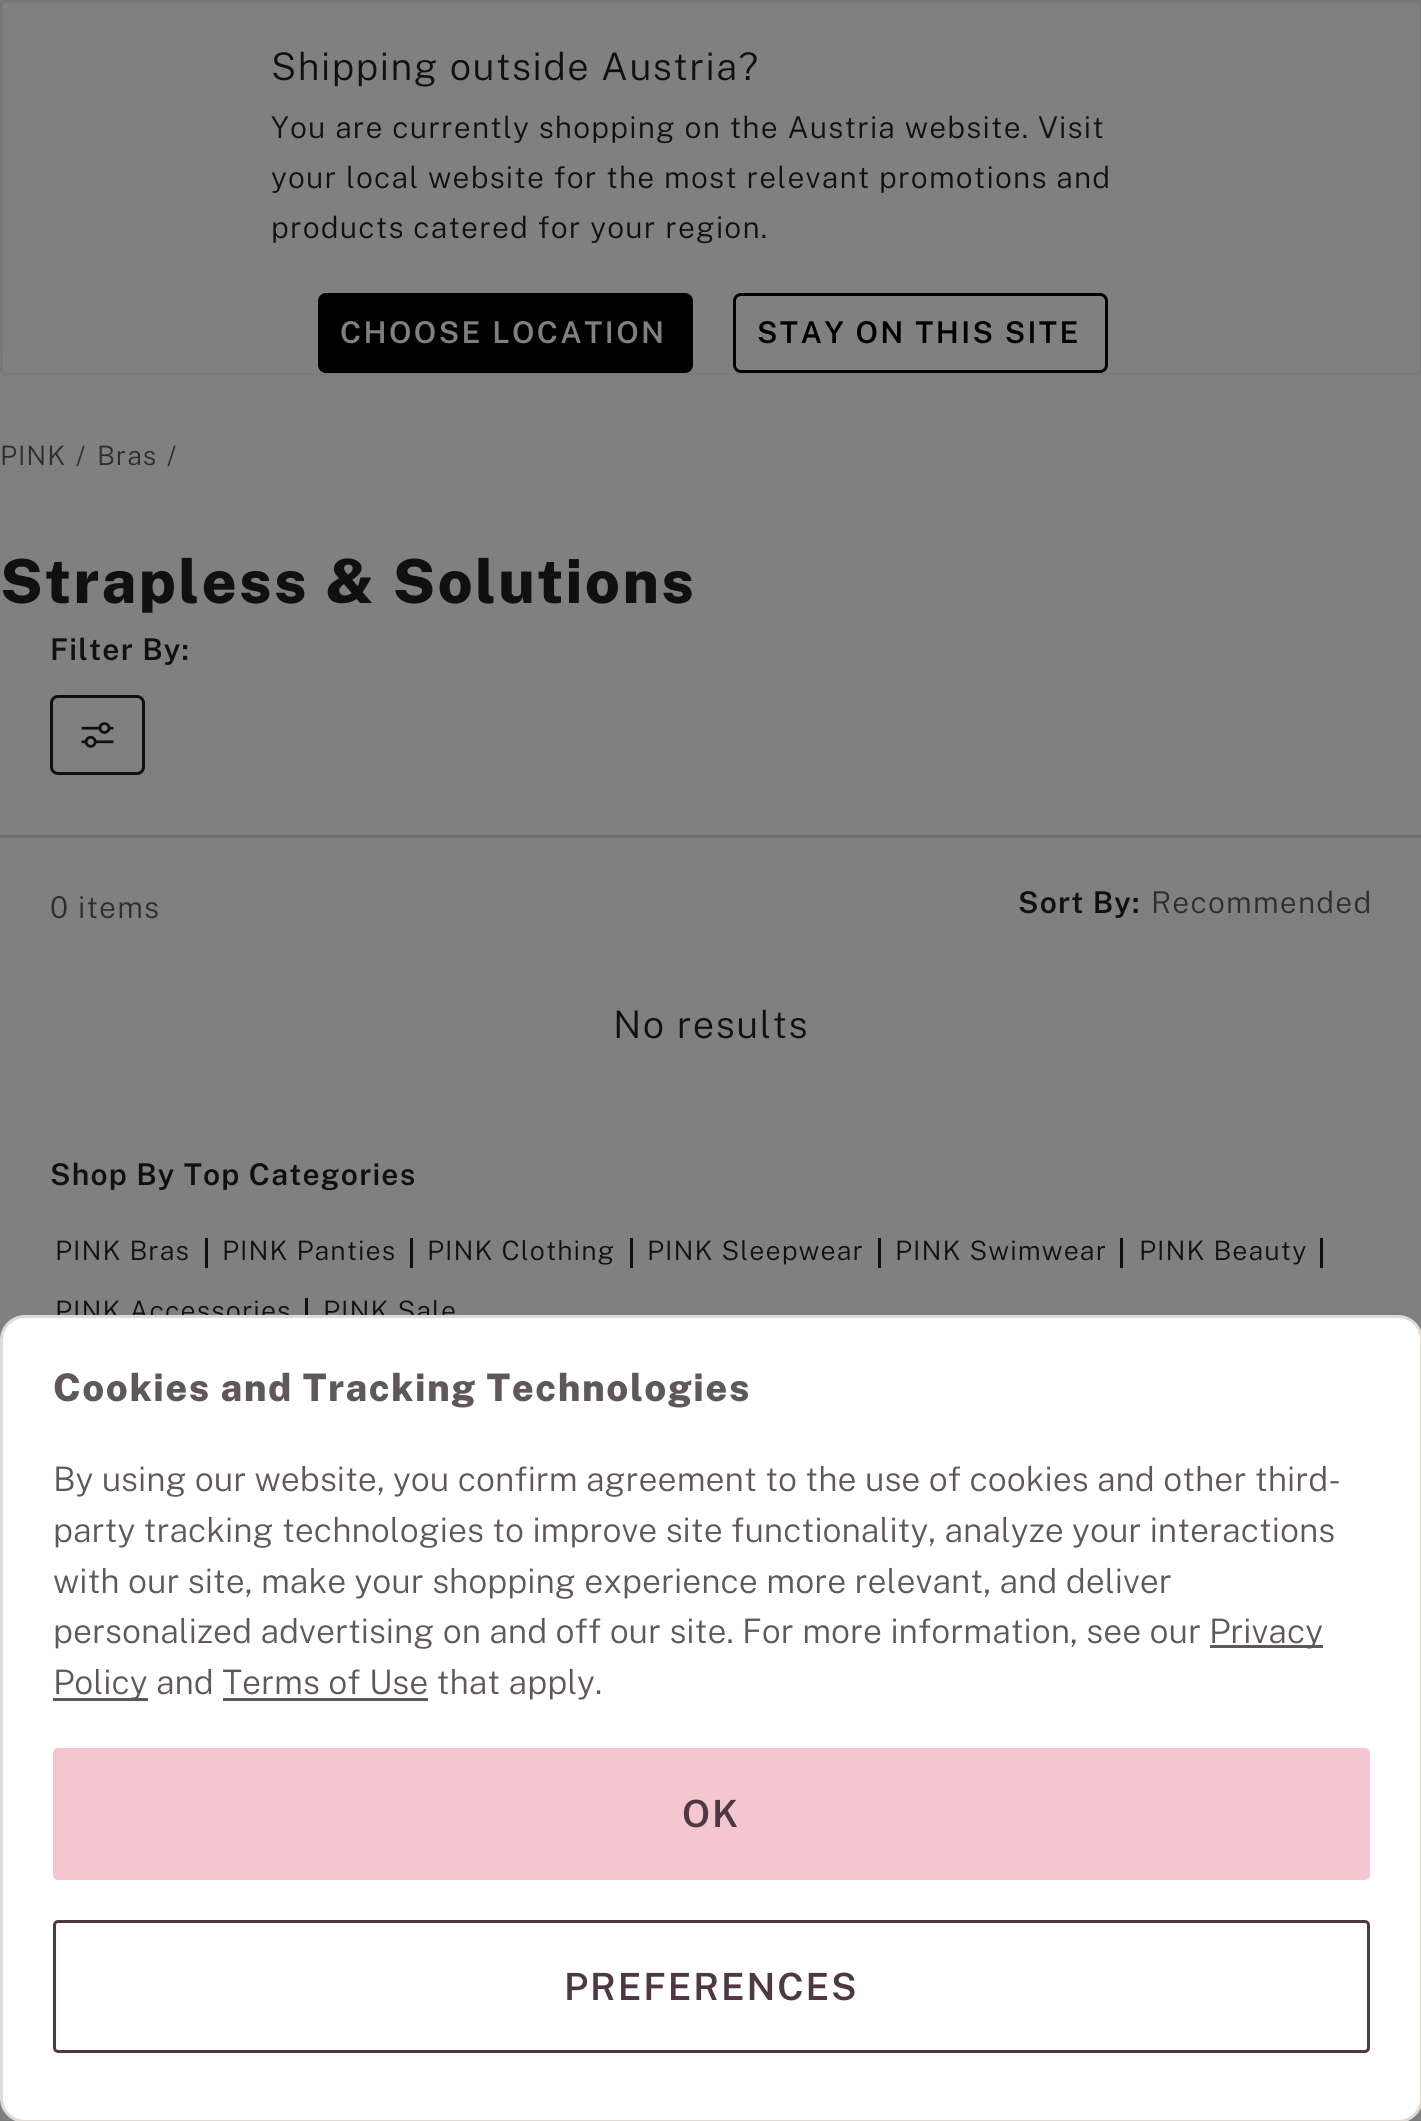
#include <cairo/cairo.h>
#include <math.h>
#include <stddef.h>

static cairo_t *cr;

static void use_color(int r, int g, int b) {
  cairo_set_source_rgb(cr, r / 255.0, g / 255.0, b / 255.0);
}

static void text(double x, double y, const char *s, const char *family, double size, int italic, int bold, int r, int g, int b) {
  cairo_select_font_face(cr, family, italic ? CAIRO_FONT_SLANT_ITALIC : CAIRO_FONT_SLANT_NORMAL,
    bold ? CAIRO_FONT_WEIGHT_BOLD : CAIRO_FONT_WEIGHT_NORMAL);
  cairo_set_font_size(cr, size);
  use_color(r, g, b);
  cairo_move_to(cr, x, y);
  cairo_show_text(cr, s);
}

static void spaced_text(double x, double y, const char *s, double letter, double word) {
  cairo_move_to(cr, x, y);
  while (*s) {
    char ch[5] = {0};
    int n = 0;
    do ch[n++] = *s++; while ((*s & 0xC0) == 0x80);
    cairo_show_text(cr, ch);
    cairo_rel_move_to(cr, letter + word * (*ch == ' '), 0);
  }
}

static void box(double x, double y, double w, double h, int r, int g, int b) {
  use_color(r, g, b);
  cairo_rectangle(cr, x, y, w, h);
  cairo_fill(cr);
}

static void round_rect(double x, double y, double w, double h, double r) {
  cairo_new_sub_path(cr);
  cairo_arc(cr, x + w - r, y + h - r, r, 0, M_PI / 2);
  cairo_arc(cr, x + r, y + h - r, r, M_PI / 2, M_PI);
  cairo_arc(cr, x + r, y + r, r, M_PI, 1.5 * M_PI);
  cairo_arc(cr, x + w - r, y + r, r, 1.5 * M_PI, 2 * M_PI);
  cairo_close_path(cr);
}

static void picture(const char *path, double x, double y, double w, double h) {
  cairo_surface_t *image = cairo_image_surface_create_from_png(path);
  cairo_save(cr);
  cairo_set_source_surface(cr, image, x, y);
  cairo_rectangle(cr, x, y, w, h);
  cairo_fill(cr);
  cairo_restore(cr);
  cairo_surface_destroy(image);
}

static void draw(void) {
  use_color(128, 128, 128);
  cairo_paint(cr);
  box(0, 0, 1421, 5, 125, 124, 125);
  use_color(128, 128, 128);
  round_rect(0, 0, 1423, 375, 5);
  cairo_fill(cr);
  cairo_new_path(cr);
  cairo_move_to(cr, 1420, 372.5);
  cairo_line_to(cr, 1417.5, 374);
  cairo_line_to(cr, 5, 374);
  cairo_line_to(cr, 2.5, 372.5);
  use_color(123, 123, 123);
  cairo_set_line_width(cr, 2.5);
  cairo_stroke(cr);
  cairo_new_path(cr);
  cairo_move_to(cr, 2.5, 372.5);
  cairo_line_to(cr, 1.5, 370.5);
  cairo_line_to(cr, 1, 5);
  cairo_curve_to(cr, 1.5, 3, 3, 1.5, 5, 1);
  cairo_line_to(cr, 1417.5, 1);
  cairo_curve_to(cr, 1419.5, 1.5, 1421, 3, 1421, 5);
  cairo_line_to(cr, 1421, 370.5);
  cairo_line_to(cr, 1420, 372.5);
  use_color(120, 118, 117);
  cairo_stroke(cr);
  use_color(0, 0, 0);
  round_rect(319.5, 294.5, 372, 77, 6.5);
  cairo_fill_preserve(cr);
  cairo_set_line_width(cr, 3);
  cairo_stroke(cr);
  round_rect(734.5, 294.5, 372, 77, 6.5);
  cairo_stroke(cr);
  round_rect(51.5, 696.5, 92, 77, 6.5);
  use_color(17, 15, 15);
  cairo_stroke(cr);
  picture("img_01.png", 81, 722, 33, 26);
  box(0, 835, 1421, 3, 112, 109, 107);
  box(205, 1238, 3, 30, 17, 15, 15);
  box(410, 1238, 3, 30, 17, 15, 15);
  box(630, 1238, 3, 30, 17, 15, 15);
  box(878, 1238, 3, 30, 17, 15, 15);
  box(1120, 1238, 3, 30, 17, 15, 15);
  box(1320, 1238, 3, 30, 17, 15, 15);
  box(305, 1298, 3, 17, 17, 15, 15);
  box(0, 2120, 1421, 1, 123, 123, 123);
  cairo_select_font_face(cr, "Public Sans Light", CAIRO_FONT_SLANT_NORMAL, CAIRO_FONT_WEIGHT_NORMAL);
  cairo_set_font_size(cr, 38);
  use_color(17, 15, 15);
  spaced_text(271, 80, "Shipping outside Austria?", 1.5, 0);
  cairo_set_font_size(cr, 30);
  spaced_text(271, 138, "You are currently shopping on the Austria website. Visit", 1.2, 0);
  spaced_text(271, 188, "your local website for the most relevant promotions and", 1.2, 0);
  spaced_text(271, 238, "products catered for your region.", 1.2, 0);
  cairo_select_font_face(cr, "Public Sans SemiBold", CAIRO_FONT_SLANT_NORMAL, CAIRO_FONT_WEIGHT_NORMAL);
  use_color(128, 128, 128);
  spaced_text(340, 343, "CHOOSE LOCATION", 2.4, 0);
  use_color(0, 0, 0);
  spaced_text(757, 343, "STAY ON THIS SITE", 2.4, 0);
  cairo_select_font_face(cr, "Public Sans Light", CAIRO_FONT_SLANT_NORMAL, CAIRO_FONT_WEIGHT_NORMAL);
  cairo_set_font_size(cr, 26.75);
  use_color(48, 44, 44);
  spaced_text(0, 465, "PINK", 1, 0);
  spaced_text(76, 465, "/", 1, 0);
  spaced_text(97, 465, "Bras", 1, 0);
  spaced_text(167, 465, "/", 1, 0);
  cairo_select_font_face(cr, "Public Sans ExtraBold", CAIRO_FONT_SLANT_NORMAL, CAIRO_FONT_WEIGHT_NORMAL);
  cairo_set_font_size(cr, 60.75);
  use_color(17, 15, 15);
  spaced_text(0, 603, "Strapless & Solutions", 2.4, 0);
  cairo_select_font_face(cr, "Public Sans SemiBold", CAIRO_FONT_SLANT_NORMAL, CAIRO_FONT_WEIGHT_NORMAL);
  cairo_set_font_size(cr, 30);
  spaced_text(50, 660, "Filter By:", 1.2, 0);
  cairo_select_font_face(cr, "Public Sans Light", CAIRO_FONT_SLANT_NORMAL, CAIRO_FONT_WEIGHT_NORMAL);
  use_color(48, 44, 44);
  spaced_text(50, 918, "0 items", 1.2, 0);
  cairo_select_font_face(cr, "Public Sans SemiBold", CAIRO_FONT_SLANT_NORMAL, CAIRO_FONT_WEIGHT_NORMAL);
  use_color(17, 15, 15);
  spaced_text(1018, 913, "Sort By:", 1.2, 0);
  cairo_select_font_face(cr, "Public Sans Light", CAIRO_FONT_SLANT_NORMAL, CAIRO_FONT_WEIGHT_NORMAL);
  use_color(48, 44, 44);
  spaced_text(1151, 913, "Recommended", 1.2, 0);
  cairo_set_font_size(cr, 38);
  use_color(17, 15, 15);
  spaced_text(613, 1038, "No results", 1.5, 0);
  cairo_select_font_face(cr, "Public Sans SemiBold", CAIRO_FONT_SLANT_NORMAL, CAIRO_FONT_WEIGHT_NORMAL);
  cairo_set_font_size(cr, 30);
  spaced_text(50, 1185, "Shop By Top Categories", 1.2, 0);
  cairo_select_font_face(cr, "Public Sans Light", CAIRO_FONT_SLANT_NORMAL, CAIRO_FONT_WEIGHT_NORMAL);
  cairo_set_font_size(cr, 26.75);
  spaced_text(55, 1260, "PINK Bras", 1.1, 0);
  spaced_text(222, 1260, "PINK Panties", 1.1, 0);
  spaced_text(427, 1260, "PINK Clothing", 1.1, 0);
  spaced_text(647, 1260, "PINK Sleepwear", 1.1, 0);
  spaced_text(895, 1260, "PINK Swimwear", 1.1, 0);
  spaced_text(1139, 1260, "PINK Beauty", 1.1, 0);
  spaced_text(55, 1320, "PINK Accessories", 1.1, 0);
  spaced_text(323, 1320, "PINK Sale", 1.1, 0);
  use_color(255, 255, 255);
  round_rect(1.5, 1316.5, 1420, 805, 23.5);
  cairo_fill_preserve(cr);
  use_color(224, 218, 213);
  cairo_stroke(cr);
  cairo_select_font_face(cr, "Public Sans ExtraBold", CAIRO_FONT_SLANT_NORMAL, CAIRO_FONT_WEIGHT_NORMAL);
  cairo_set_font_size(cr, 38);
  use_color(96, 88, 88);
  spaced_text(53, 1401, "Cookies and Tracking Technologies", 1.5, 0);
  text(53, 1491, "By using our website, you confirm agreement to the use of cookies and other third-", "Public Sans Light", 33.75, 0, 0, 96, 88, 88);
  text(53, 1542, "party tracking technologies to improve site functionality, analyze your interactions", "Public Sans Light", 33.75, 0, 0, 96, 88, 88);
  text(53, 1593, "with our site, make your shopping experience more relevant, and deliver", "Public Sans Light", 33.75, 0, 0, 96, 88, 88);
  text(53, 1643, "personalized advertising on and off our site. For more information, see our", "Public Sans Light", 33.75, 0, 0, 96, 88, 88);
  box(1210, 1645, 113, 3, 96, 88, 88);
  text(1209, 1643, "Privacy", "Public Sans Light", 33.75, 0, 0, 96, 88, 88);
  box(53, 1698, 95, 3, 96, 88, 88);
  text(53, 1694, "Policy and Terms of Use that apply.", "Public Sans Light", 33.75, 0, 0, 96, 88, 88);
  box(223, 1698, 205, 3, 96, 88, 88);
  use_color(244, 198, 207);
  round_rect(54.5, 1749.5, 1314, 129, 3.5);
  cairo_fill_preserve(cr);
  cairo_stroke(cr);
  cairo_select_font_face(cr, "Public Sans SemiBold", CAIRO_FONT_SLANT_NORMAL, CAIRO_FONT_WEIGHT_NORMAL);
  cairo_set_font_size(cr, 37.5);
  use_color(78, 56, 68);
  spaced_text(682, 1827, "OK", 1.9, 0);
  round_rect(54.5, 1921.5, 1314, 130, 3.5);
  cairo_stroke(cr);
  spaced_text(564, 2000, "PREFERENCES", 1.9, 0);
}

int main(void) {
  cairo_surface_t *surface = cairo_image_surface_create(CAIRO_FORMAT_RGB24, 1421, 2121);
  cr = cairo_create(surface);
  cairo_font_options_t *options = cairo_font_options_create();
  cairo_font_options_set_hint_metrics(options, CAIRO_HINT_METRICS_OFF);
  cairo_font_options_set_hint_style(options, CAIRO_HINT_STYLE_NONE);
  cairo_set_font_options(cr, options);
  cairo_set_miter_limit(cr, 4);
  draw();
  cairo_surface_write_to_png(surface, "out.png");
  cairo_font_options_destroy(options);
  cairo_destroy(cr);
  cairo_surface_destroy(surface);
  return 0;
}
